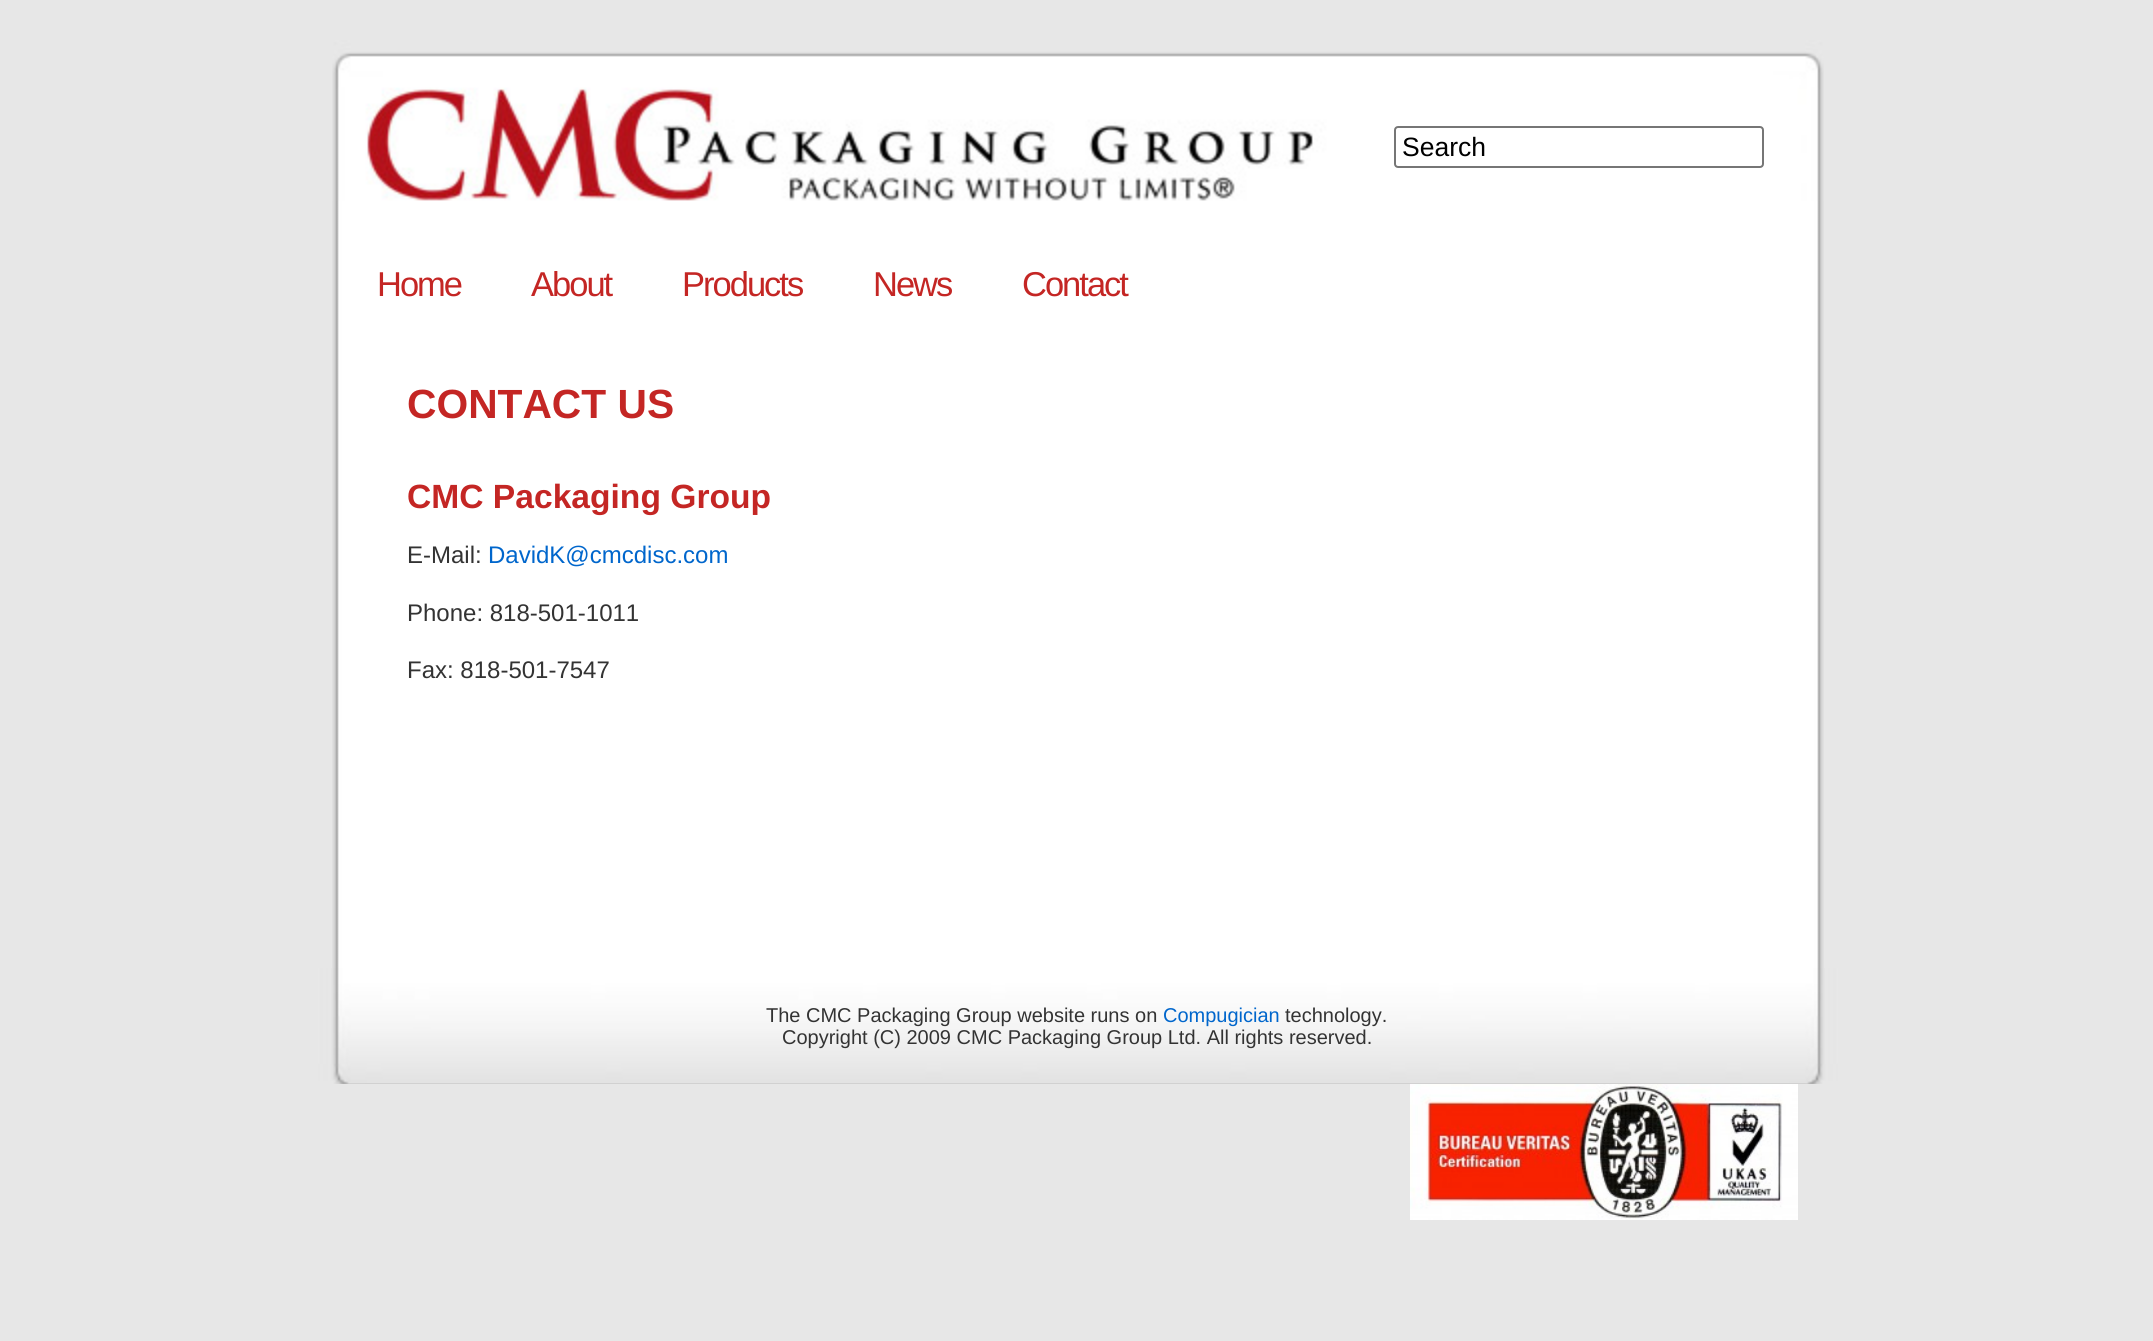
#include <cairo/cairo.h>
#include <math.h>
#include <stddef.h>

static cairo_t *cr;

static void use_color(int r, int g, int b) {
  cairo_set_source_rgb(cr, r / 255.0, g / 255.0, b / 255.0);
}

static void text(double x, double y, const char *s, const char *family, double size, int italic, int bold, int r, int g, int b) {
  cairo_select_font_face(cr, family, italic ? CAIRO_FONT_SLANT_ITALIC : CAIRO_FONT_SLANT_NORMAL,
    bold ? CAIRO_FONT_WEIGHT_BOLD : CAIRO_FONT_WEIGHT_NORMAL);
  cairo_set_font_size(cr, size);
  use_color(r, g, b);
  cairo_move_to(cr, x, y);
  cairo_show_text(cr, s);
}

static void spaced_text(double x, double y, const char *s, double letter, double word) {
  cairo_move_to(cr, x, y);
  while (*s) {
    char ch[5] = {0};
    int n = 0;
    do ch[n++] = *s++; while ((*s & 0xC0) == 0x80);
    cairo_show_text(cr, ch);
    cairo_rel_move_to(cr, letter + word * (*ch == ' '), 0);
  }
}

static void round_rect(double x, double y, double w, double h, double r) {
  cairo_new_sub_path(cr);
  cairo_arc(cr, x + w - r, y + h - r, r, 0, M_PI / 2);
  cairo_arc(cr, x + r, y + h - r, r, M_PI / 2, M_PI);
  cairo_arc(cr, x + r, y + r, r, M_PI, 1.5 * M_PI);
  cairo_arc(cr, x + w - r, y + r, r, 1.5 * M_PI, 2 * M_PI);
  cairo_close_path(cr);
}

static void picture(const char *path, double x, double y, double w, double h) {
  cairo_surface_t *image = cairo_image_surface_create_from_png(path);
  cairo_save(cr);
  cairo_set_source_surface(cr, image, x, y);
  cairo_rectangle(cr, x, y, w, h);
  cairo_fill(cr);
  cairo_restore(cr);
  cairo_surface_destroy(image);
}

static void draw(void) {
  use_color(231, 231, 231);
  cairo_paint(cr);
  picture("img_01.png", 332, 201, 1492, 767);
  picture("img_02.png", 332, 40, 1492, 161);
  round_rect(1395, 127, 368, 40, 3);
  use_color(118, 118, 118);
  cairo_stroke(cr);
  picture("img_03.png", 318, 968, 1520, 116);
  picture("img_04.png", 1410, 1084, 388, 136);
  text(1402, 156, "Search", "Liberation Sans", 26.5, 0, 0, 0, 0, 0);
  cairo_set_font_size(cr, 34.5);
  use_color(196, 38, 36);
  spaced_text(377, 296, "Home", -2, 0);
  spaced_text(531, 296, "About", -2, 0);
  spaced_text(682, 296, "Products", -2, 0);
  spaced_text(873, 296, "News", -2, 0);
  spaced_text(1022, 296, "Contact", -2, 0);
  text(407, 418, "CONTACT US", "Liberation Sans", 40.75, 0, 1, 196, 38, 36);
  text(407, 508, "CMC Packaging Group", "Liberation Sans", 33.6, 0, 1, 196, 38, 36);
  text(407, 563, "E-Mail:", "Liberation Sans", 24, 0, 0, 51, 51, 51);
  text(488, 563, "DavidK@cmcdisc.com", "Liberation Sans", 24, 0, 0, 0, 102, 204);
  text(407, 621, "Phone: 818-501-1011", "Liberation Sans", 24, 0, 0, 51, 51, 51);
  text(407, 678, "Fax: 818-501-7547", "Liberation Sans", 24, 0, 0, 51, 51, 51);
  text(766, 1022, "The CMC Packaging Group website runs on", "Liberation Sans", 20, 0, 0, 51, 51, 51);
  text(1163, 1022, "Compugician", "Liberation Sans", 20, 0, 0, 0, 102, 204);
  text(1285, 1022, "technology.", "Liberation Sans", 20, 0, 0, 51, 51, 51);
  text(782, 1044, "Copyright (C) 2009 CMC Packaging Group Ltd. All rights reserved.", "Liberation Sans", 20, 0, 0, 51, 51, 51);
}

int main(void) {
  cairo_surface_t *surface = cairo_image_surface_create(CAIRO_FORMAT_RGB24, 2153, 1341);
  cr = cairo_create(surface);
  cairo_font_options_t *options = cairo_font_options_create();
  cairo_font_options_set_hint_metrics(options, CAIRO_HINT_METRICS_OFF);
  cairo_font_options_set_hint_style(options, CAIRO_HINT_STYLE_NONE);
  cairo_set_font_options(cr, options);
  cairo_set_miter_limit(cr, 4);
  draw();
  cairo_surface_write_to_png(surface, "out.png");
  cairo_font_options_destroy(options);
  cairo_destroy(cr);
  cairo_surface_destroy(surface);
  return 0;
}
